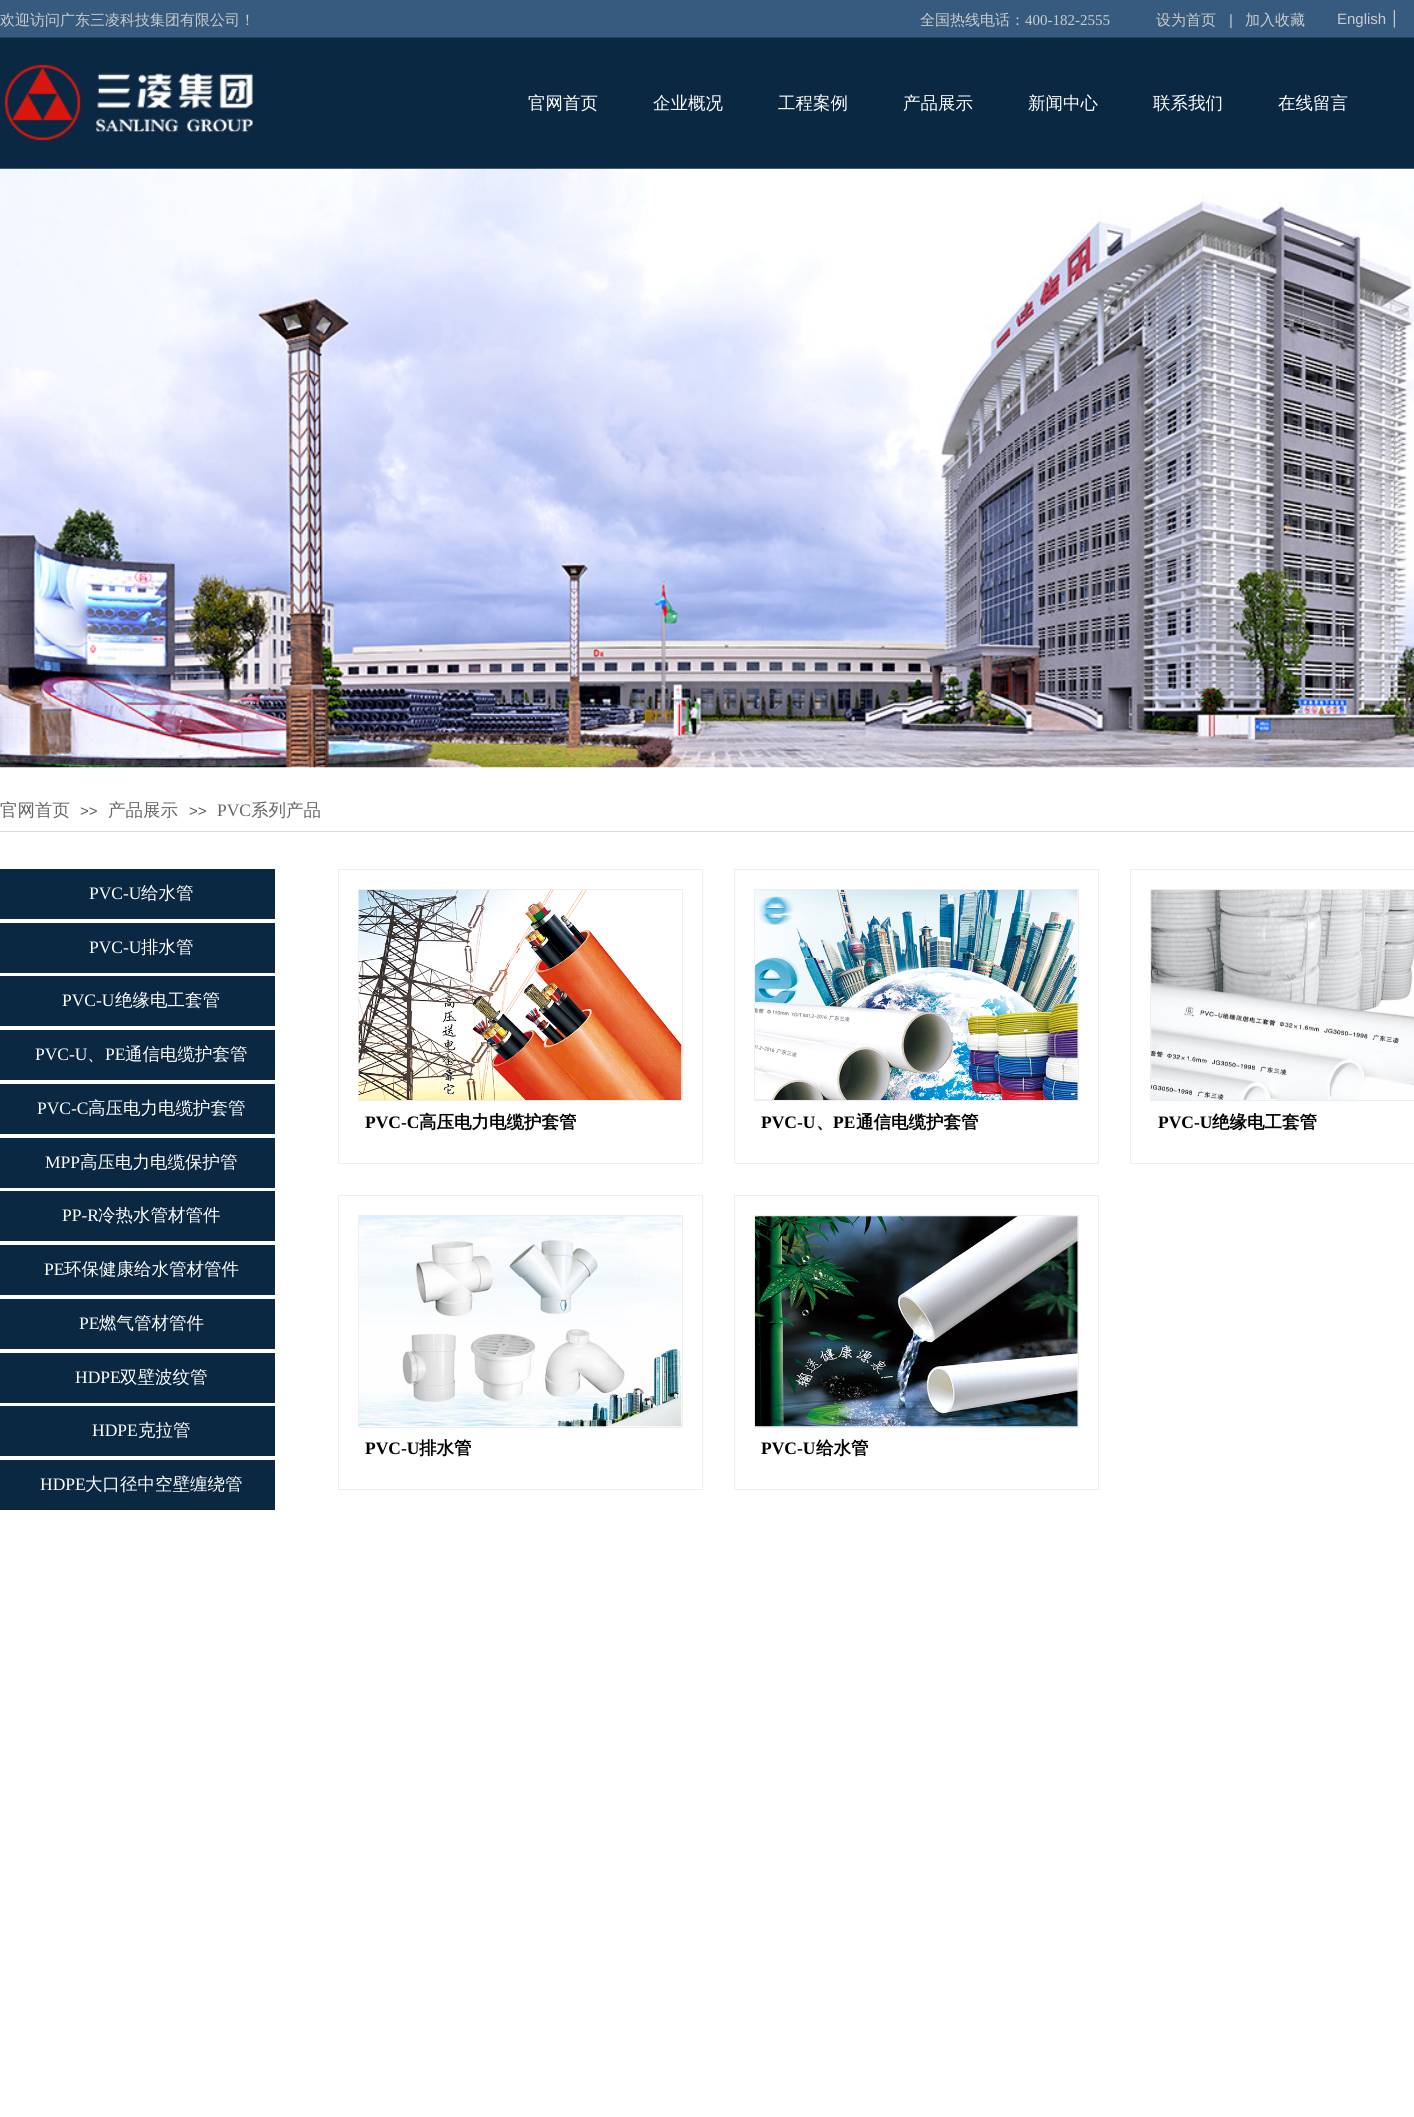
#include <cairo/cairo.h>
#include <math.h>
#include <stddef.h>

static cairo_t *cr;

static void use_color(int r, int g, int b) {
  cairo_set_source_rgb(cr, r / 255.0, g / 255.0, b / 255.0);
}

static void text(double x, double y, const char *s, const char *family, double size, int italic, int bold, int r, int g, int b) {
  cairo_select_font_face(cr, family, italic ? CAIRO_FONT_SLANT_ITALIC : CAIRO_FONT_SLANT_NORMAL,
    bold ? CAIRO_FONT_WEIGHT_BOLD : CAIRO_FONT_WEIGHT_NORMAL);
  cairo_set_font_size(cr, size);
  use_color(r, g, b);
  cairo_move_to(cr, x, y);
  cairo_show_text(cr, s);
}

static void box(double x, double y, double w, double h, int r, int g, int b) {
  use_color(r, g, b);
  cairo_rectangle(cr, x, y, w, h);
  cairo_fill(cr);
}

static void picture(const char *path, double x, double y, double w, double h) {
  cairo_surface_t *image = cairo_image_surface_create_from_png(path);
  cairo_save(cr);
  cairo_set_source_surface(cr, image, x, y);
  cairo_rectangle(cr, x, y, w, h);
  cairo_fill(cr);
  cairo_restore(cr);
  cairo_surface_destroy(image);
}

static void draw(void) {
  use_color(255, 255, 255);
  cairo_paint(cr);
  picture("img_04.png", 0, 168, 1414, 600);
  picture("img_01.png", 0, 0, 1414, 169);
  picture("img_02.png", 1393, 10, 2, 18);
  picture("img_03.png", 4, 64, 256, 77);
  box(0, 831, 1414, 1, 217, 217, 217);
  box(0, 869, 275, 50, 10, 40, 66);
  box(0, 923, 275, 50, 10, 40, 66);
  box(0, 976, 275, 50, 10, 40, 66);
  box(0, 1030, 275, 50, 10, 40, 66);
  box(0, 1084, 275, 50, 10, 40, 66);
  box(0, 1138, 275, 50, 10, 40, 66);
  box(0, 1191, 275, 50, 10, 40, 66);
  box(0, 1245, 275, 50, 10, 40, 66);
  box(0, 1299, 275, 50, 10, 40, 66);
  box(0, 1353, 275, 50, 10, 40, 66);
  box(0, 1406, 275, 50, 10, 40, 66);
  box(0, 1460, 275, 50, 10, 40, 66);
  cairo_rectangle(cr, 338.5, 869.5, 364, 294);
  use_color(238, 238, 238);
  cairo_set_line_width(cr, 1);
  cairo_stroke(cr);
  cairo_rectangle(cr, 358.5, 889.5, 324, 211);
  cairo_stroke(cr);
  picture("img_05.png", 358, 890, 324, 210);
  cairo_rectangle(cr, 734.5, 869.5, 364, 294);
  cairo_stroke(cr);
  cairo_rectangle(cr, 754.5, 889.5, 324, 211);
  cairo_stroke(cr);
  picture("img_06.png", 755, 890, 323, 210);
  cairo_rectangle(cr, 1130.5, 869.5, 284, 294);
  cairo_stroke(cr);
  cairo_rectangle(cr, 1150.5, 889.5, 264, 211);
  cairo_stroke(cr);
  picture("img_07.png", 1151, 890, 263, 210);
  cairo_rectangle(cr, 338.5, 1195.5, 364, 294);
  cairo_stroke(cr);
  cairo_rectangle(cr, 358.5, 1215.5, 324, 212);
  cairo_stroke(cr);
  picture("img_08.png", 358, 1216, 324, 211);
  cairo_rectangle(cr, 734.5, 1195.5, 364, 294);
  cairo_stroke(cr);
  cairo_rectangle(cr, 754.5, 1215.5, 324, 212);
  cairo_stroke(cr);
  picture("img_09.png", 755, 1216, 323, 211);
  text(0, 25, "欢迎访问广东三凌科技集团有限公司！", "WenQuanYi Zen Hei Medium", 15, 0, 0, 204, 204, 204);
  text(920, 25, "全国热线电话：", "WenQuanYi Zen Hei Medium", 15, 0, 0, 204, 204, 204);
  text(1025, 25, "400-182-2555", "Liberation Serif", 15, 0, 0, 204, 204, 204);
  text(1156, 25, "设为首页", "WenQuanYi Zen Hei Medium", 15, 0, 0, 204, 204, 204);
  text(1229, 25, "|", "Liberation Sans", 15, 0, 0, 204, 204, 204);
  text(1245, 25, "加入收藏", "WenQuanYi Zen Hei Medium", 15, 0, 0, 204, 204, 204);
  text(1337, 24, "English", "Liberation Sans", 15, 0, 0, 204, 204, 204);
  text(528, 109, "官网首页", "WenQuanYi Zen Hei Medium", 17.5, 0, 0, 255, 255, 255);
  text(653, 109, "企业概况", "WenQuanYi Zen Hei Medium", 17.5, 0, 0, 255, 255, 255);
  text(778, 109, "工程案例", "WenQuanYi Zen Hei Medium", 17.5, 0, 0, 255, 255, 255);
  text(903, 109, "产品展示", "WenQuanYi Zen Hei Medium", 17.5, 0, 0, 255, 255, 255);
  text(1028, 109, "新闻中心", "WenQuanYi Zen Hei Medium", 17.5, 0, 0, 255, 255, 255);
  text(1153, 109, "联系我们", "WenQuanYi Zen Hei Medium", 17.5, 0, 0, 255, 255, 255);
  text(1278, 109, "在线留言", "WenQuanYi Zen Hei Medium", 17.5, 0, 0, 255, 255, 255);
  text(0, 816, "官网首页", "WenQuanYi Zen Hei Medium", 17.5, 0, 0, 102, 102, 102);
  text(80, 816, ">>", "Liberation Sans", 15, 0, 0, 90, 90, 90);
  text(108, 816, "产品展示", "WenQuanYi Zen Hei Medium", 17.5, 0, 0, 102, 102, 102);
  text(189, 816, ">>", "Liberation Sans", 15, 0, 0, 90, 90, 90);
  text(217, 816, "PVC", "Liberation Serif", 17.5, 0, 0, 102, 102, 102);
  text(251, 816, "系列产品", "WenQuanYi Zen Hei Medium", 17.5, 0, 0, 102, 102, 102);
  text(89, 899, "PVC-U", "Liberation Serif", 17.5, 0, 0, 255, 255, 255);
  text(141, 899, "给水管", "WenQuanYi Zen Hei Medium", 17.5, 0, 0, 255, 255, 255);
  text(89, 953, "PVC-U", "Liberation Serif", 17.5, 0, 0, 255, 255, 255);
  text(141, 953, "排水管", "WenQuanYi Zen Hei Medium", 17.5, 0, 0, 255, 255, 255);
  text(62, 1006, "PVC-U", "Liberation Serif", 17.5, 0, 0, 255, 255, 255);
  text(115, 1006, "绝缘电工套管", "WenQuanYi Zen Hei Medium", 17.5, 0, 0, 255, 255, 255);
  text(35, 1060, "PVC-U", "Liberation Serif", 17.5, 0, 0, 255, 255, 255);
  text(105, 1060, "PE", "Liberation Serif", 17.5, 0, 0, 255, 255, 255);
  text(125, 1060, "通信电缆护套管", "WenQuanYi Zen Hei Medium", 17.5, 0, 0, 255, 255, 255);
  text(87, 1060, "、", "WenQuanYi Zen Hei Medium", 17.5, 0, 0, 255, 255, 255);
  text(37, 1114, "PVC-C", "Liberation Serif", 17.5, 0, 0, 255, 255, 255);
  text(88, 1114, "高压电力电缆护套管", "WenQuanYi Zen Hei Medium", 17.5, 0, 0, 255, 255, 255);
  text(45, 1168, "MPP", "Liberation Serif", 17.5, 0, 0, 255, 255, 255);
  text(80, 1168, "高压电力电缆保护管", "WenQuanYi Zen Hei Medium", 17.5, 0, 0, 255, 255, 255);
  text(62, 1221, "PP-R", "Liberation Serif", 17.5, 0, 0, 255, 255, 255);
  text(98, 1221, "冷热水管材管件", "WenQuanYi Zen Hei Medium", 17.5, 0, 0, 255, 255, 255);
  text(44, 1275, "PE", "Liberation Serif", 17.5, 0, 0, 255, 255, 255);
  text(64, 1275, "环保健康给水管材管件", "WenQuanYi Zen Hei Medium", 17.5, 0, 0, 255, 255, 255);
  text(79, 1329, "PE", "Liberation Serif", 17.5, 0, 0, 255, 255, 255);
  text(99, 1329, "燃气管材管件", "WenQuanYi Zen Hei Medium", 17.5, 0, 0, 255, 255, 255);
  text(75, 1383, "HDPE", "Liberation Serif", 17.5, 0, 0, 255, 255, 255);
  text(120, 1383, "双壁波纹管", "WenQuanYi Zen Hei Medium", 17.5, 0, 0, 255, 255, 255);
  text(92, 1436, "HDPE", "Liberation Serif", 17.5, 0, 0, 255, 255, 255);
  text(138, 1436, "克拉管", "WenQuanYi Zen Hei Medium", 17.5, 0, 0, 255, 255, 255);
  text(40, 1490, "HDPE", "Liberation Serif", 17.5, 0, 0, 255, 255, 255);
  text(85, 1490, "大口径中空壁缠绕管", "WenQuanYi Zen Hei Medium", 17.5, 0, 0, 255, 255, 255);
  text(365, 1128, "PVC-C", "Liberation Serif", 17.5, 0, 1, 0, 0, 0);
  text(419, 1128, "高压电力电缆护套管", "WenQuanYi Zen Hei", 17.5, 0, 1, 0, 0, 0);
  text(761, 1128, "PVC-U", "Liberation Serif", 17.5, 0, 1, 0, 0, 0);
  text(833, 1128, "PE", "Liberation Serif", 17.5, 0, 1, 0, 0, 0);
  text(856, 1128, "通信电缆护套管", "WenQuanYi Zen Hei", 17.5, 0, 1, 0, 0, 0);
  text(816, 1128, "、", "WenQuanYi Zen Hei", 17.5, 0, 1, 0, 0, 0);
  text(1158, 1128, "PVC-U", "Liberation Serif", 17.5, 0, 1, 0, 0, 0);
  text(1212, 1128, "绝缘电工套管", "WenQuanYi Zen Hei", 17.5, 0, 1, 0, 0, 0);
  text(365, 1454, "PVC-U", "Liberation Serif", 17.5, 0, 1, 0, 0, 0);
  text(419, 1454, "排水管", "WenQuanYi Zen Hei", 17.5, 0, 1, 0, 0, 0);
  text(761, 1454, "PVC-U", "Liberation Serif", 17.5, 0, 1, 0, 0, 0);
  text(816, 1454, "给水管", "WenQuanYi Zen Hei", 17.5, 0, 1, 0, 0, 0);
}

int main(void) {
  cairo_surface_t *surface = cairo_image_surface_create(CAIRO_FORMAT_RGB24, 1414, 2117);
  cr = cairo_create(surface);
  cairo_font_options_t *options = cairo_font_options_create();
  cairo_font_options_set_hint_metrics(options, CAIRO_HINT_METRICS_OFF);
  cairo_font_options_set_hint_style(options, CAIRO_HINT_STYLE_NONE);
  cairo_set_font_options(cr, options);
  cairo_set_miter_limit(cr, 4);
  draw();
  cairo_surface_write_to_png(surface, "out.png");
  cairo_font_options_destroy(options);
  cairo_destroy(cr);
  cairo_surface_destroy(surface);
  return 0;
}
